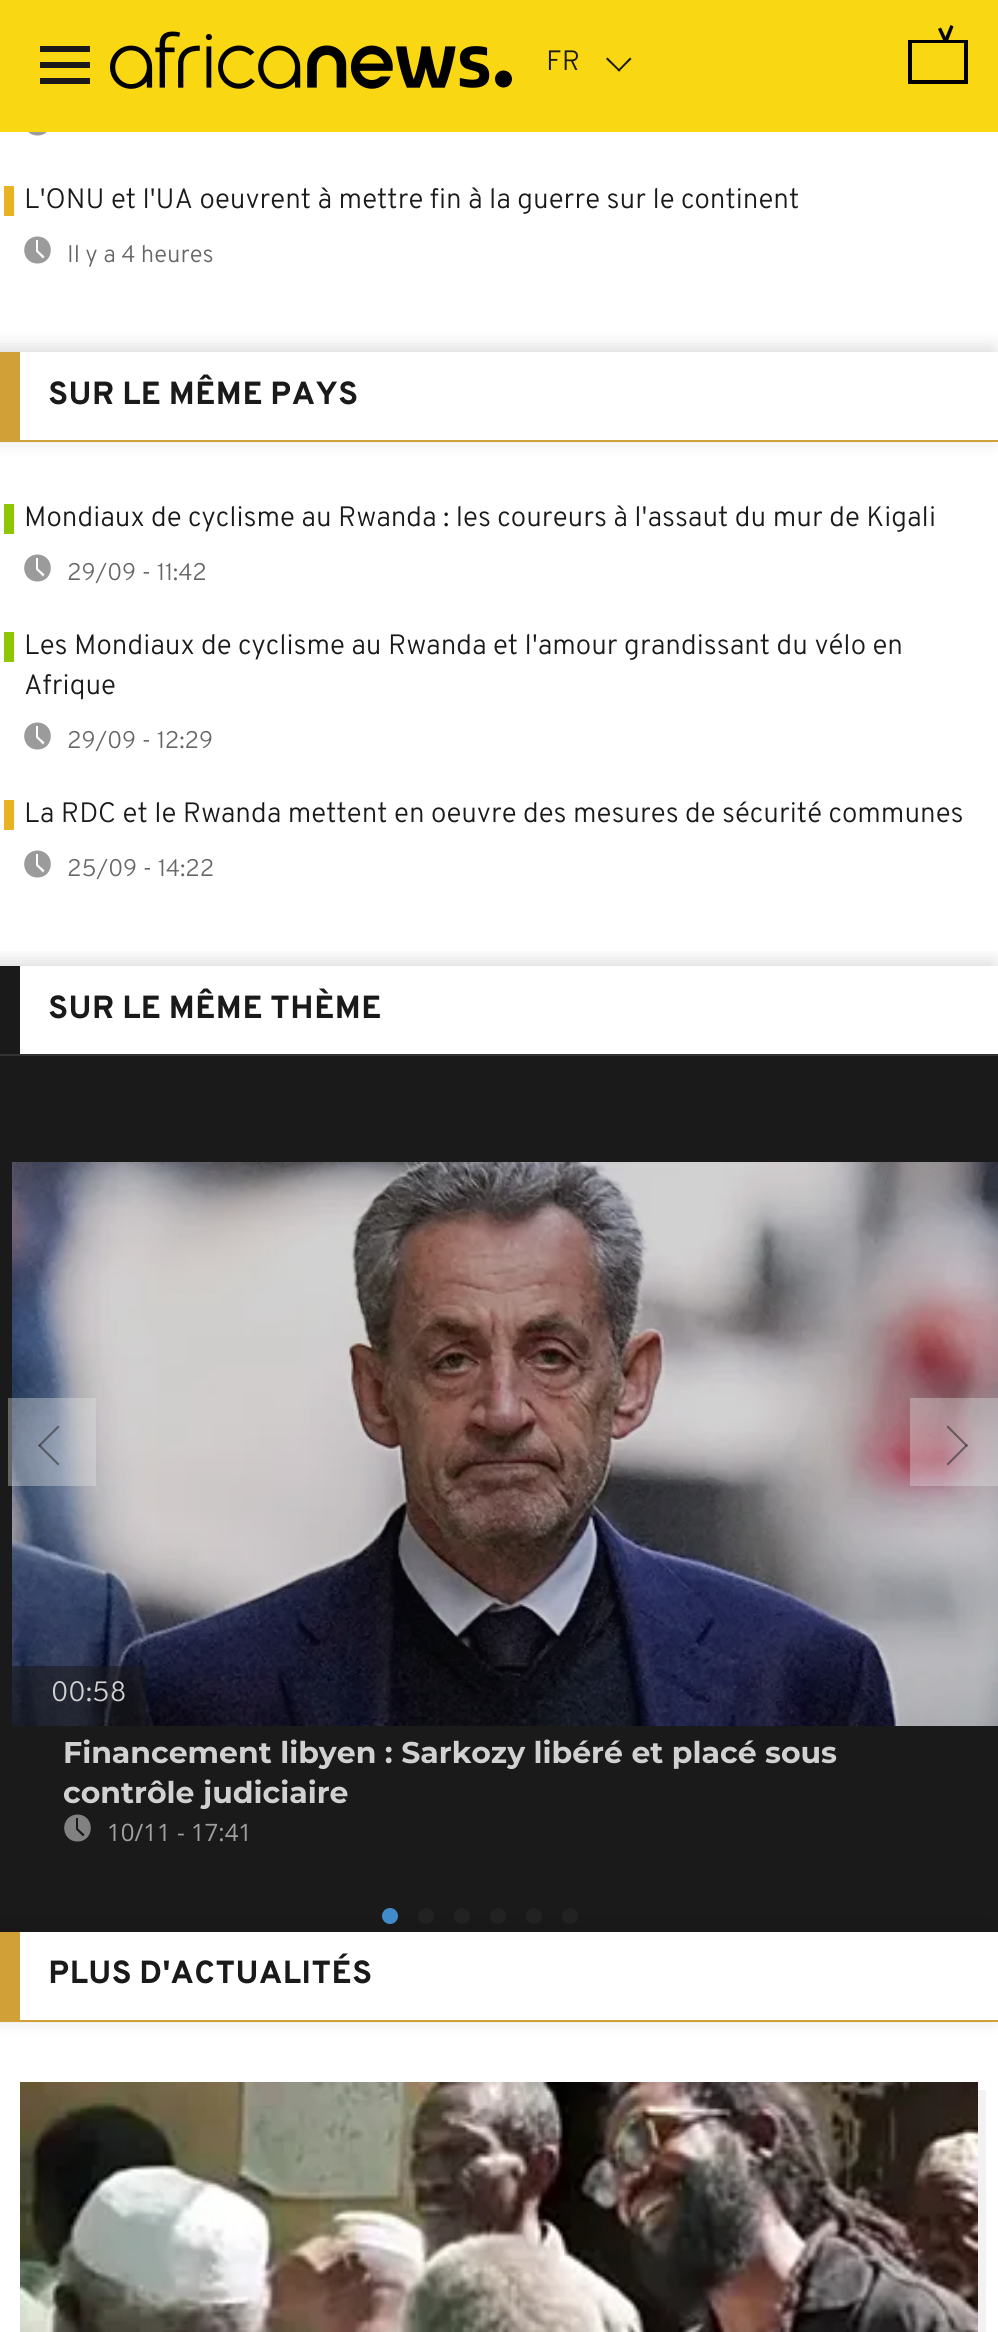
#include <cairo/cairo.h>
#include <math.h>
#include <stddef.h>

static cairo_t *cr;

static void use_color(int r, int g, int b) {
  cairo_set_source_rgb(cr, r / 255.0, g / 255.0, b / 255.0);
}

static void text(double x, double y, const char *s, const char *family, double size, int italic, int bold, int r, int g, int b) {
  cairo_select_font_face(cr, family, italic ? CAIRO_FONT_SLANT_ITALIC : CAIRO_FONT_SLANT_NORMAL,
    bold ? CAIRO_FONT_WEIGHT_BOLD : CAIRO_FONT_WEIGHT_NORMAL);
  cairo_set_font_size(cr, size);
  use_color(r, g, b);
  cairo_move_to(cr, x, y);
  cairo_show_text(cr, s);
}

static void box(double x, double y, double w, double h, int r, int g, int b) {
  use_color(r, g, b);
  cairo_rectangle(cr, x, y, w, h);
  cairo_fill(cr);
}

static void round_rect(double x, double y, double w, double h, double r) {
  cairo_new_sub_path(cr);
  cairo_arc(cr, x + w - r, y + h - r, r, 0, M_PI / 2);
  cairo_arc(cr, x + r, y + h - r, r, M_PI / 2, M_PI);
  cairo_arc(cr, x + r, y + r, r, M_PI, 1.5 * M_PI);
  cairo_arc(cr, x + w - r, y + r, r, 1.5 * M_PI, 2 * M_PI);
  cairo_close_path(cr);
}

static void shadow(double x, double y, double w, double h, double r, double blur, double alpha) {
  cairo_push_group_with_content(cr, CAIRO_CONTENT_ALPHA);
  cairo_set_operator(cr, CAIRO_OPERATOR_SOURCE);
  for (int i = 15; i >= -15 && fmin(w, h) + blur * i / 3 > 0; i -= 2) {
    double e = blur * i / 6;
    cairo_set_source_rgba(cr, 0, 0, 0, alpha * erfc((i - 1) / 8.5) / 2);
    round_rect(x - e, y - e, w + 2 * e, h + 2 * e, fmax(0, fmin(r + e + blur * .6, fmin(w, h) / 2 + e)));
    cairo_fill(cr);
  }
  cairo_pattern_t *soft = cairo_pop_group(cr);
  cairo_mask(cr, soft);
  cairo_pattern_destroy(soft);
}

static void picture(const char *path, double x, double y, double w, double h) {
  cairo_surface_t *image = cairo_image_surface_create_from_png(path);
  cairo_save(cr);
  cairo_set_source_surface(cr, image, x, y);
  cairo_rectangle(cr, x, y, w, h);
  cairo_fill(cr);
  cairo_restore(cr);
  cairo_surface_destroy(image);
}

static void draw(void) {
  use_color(255, 255, 255);
  cairo_paint(cr);
  use_color(155, 155, 155);
  cairo_new_path(cr);
  cairo_move_to(cr, 37.5, 108.5);
  cairo_curve_to(cr, 19.5, 109, 20, 135.5, 37.5, 135.5);
  cairo_curve_to(cr, 55, 135.5, 55.5, 109, 37.5, 108.5);
  cairo_close_path(cr);
  cairo_move_to(cr, 43, 130.5);
  cairo_line_to(cr, 36, 123.5);
  cairo_line_to(cr, 36, 112);
  cairo_line_to(cr, 38, 112);
  cairo_line_to(cr, 38, 122.5);
  cairo_line_to(cr, 44.5, 128.5);
  cairo_close_path(cr);
  cairo_fill(cr);
  box(0, 0, 998, 132, 249, 215, 19);
  box(40, 62, 50, 6, 26, 26, 26);
  box(40, 46, 50, 6, 26, 26, 26);
  box(40, 78, 50, 6, 26, 26, 26);
  picture("img_01.png", 110, 31, 402, 58);
  cairo_new_path(cr);
  cairo_move_to(cr, 617.5, 70.5);
  cairo_line_to(cr, 630, 57.5);
  cairo_line_to(cr, 631.5, 59);
  cairo_line_to(cr, 619, 71.5);
  cairo_close_path(cr);
  cairo_fill(cr);
  cairo_new_path(cr);
  cairo_move_to(cr, 606, 59);
  cairo_line_to(cr, 607.5, 57.5);
  cairo_line_to(cr, 620.5, 70.5);
  cairo_line_to(cr, 619, 71.5);
  cairo_close_path(cr);
  cairo_fill(cr);
  use_color(0, 0, 0);
  cairo_new_path(cr);
  cairo_move_to(cr, 968, 84);
  cairo_line_to(cr, 908, 84);
  cairo_line_to(cr, 908, 40);
  cairo_line_to(cr, 968, 40);
  cairo_close_path(cr);
  cairo_move_to(cr, 912, 80);
  cairo_line_to(cr, 964, 80);
  cairo_line_to(cr, 964, 43);
  cairo_line_to(cr, 912, 43);
  cairo_close_path(cr);
  cairo_fill(cr);
  cairo_new_path(cr);
  cairo_move_to(cr, 944, 42);
  cairo_line_to(cr, 938, 29);
  cairo_line_to(cr, 941, 27.5);
  cairo_line_to(cr, 945.5, 37);
  cairo_line_to(cr, 950.5, 25);
  cairo_line_to(cr, 953.5, 26.5);
  cairo_line_to(cr, 947.5, 42);
  cairo_close_path(cr);
  cairo_fill(cr);
  box(4, 186, 10, 30, 231, 179, 34);
  use_color(155, 155, 155);
  cairo_new_path(cr);
  cairo_move_to(cr, 37.5, 236.5);
  cairo_curve_to(cr, 19.5, 237, 20, 263.5, 37.5, 263.5);
  cairo_curve_to(cr, 55, 263.5, 55.5, 237, 37.5, 236.5);
  cairo_close_path(cr);
  cairo_move_to(cr, 43, 258.5);
  cairo_line_to(cr, 36, 251.5);
  cairo_line_to(cr, 36, 240);
  cairo_line_to(cr, 38, 240);
  cairo_line_to(cr, 38, 250.5);
  cairo_line_to(cr, 44.5, 256.5);
  cairo_close_path(cr);
  cairo_fill(cr);
  cairo_save(cr);
  cairo_set_fill_rule(cr, CAIRO_FILL_RULE_EVEN_ODD);
  cairo_new_path(cr);
  cairo_move_to(cr, 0, 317);
  cairo_line_to(cr, 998, 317);
  cairo_line_to(cr, 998, 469);
  cairo_line_to(cr, 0, 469);
  cairo_close_path(cr);
  cairo_move_to(cr, -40, 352);
  cairo_line_to(cr, 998, 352);
  cairo_line_to(cr, 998, 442);
  cairo_line_to(cr, -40, 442);
  cairo_close_path(cr);
  cairo_clip(cr);
  use_color(0, 0, 0);
  shadow(-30, 348, 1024, 90, 0, 10, 0.15);
  cairo_restore(cr);
  box(0, 440, 998, 2, 209, 161, 56);
  box(0, 352, 20, 88, 209, 161, 56);
  box(4, 504, 10, 30, 142, 199, 2);
  use_color(155, 155, 155);
  cairo_new_path(cr);
  cairo_move_to(cr, 37.5, 554.5);
  cairo_curve_to(cr, 19.5, 555, 20, 581.5, 37.5, 581.5);
  cairo_curve_to(cr, 55, 581.5, 55.5, 555, 37.5, 554.5);
  cairo_close_path(cr);
  cairo_move_to(cr, 43, 576.5);
  cairo_line_to(cr, 36, 569.5);
  cairo_line_to(cr, 36, 558);
  cairo_line_to(cr, 38, 558);
  cairo_line_to(cr, 38, 568.5);
  cairo_line_to(cr, 44.5, 574.5);
  cairo_close_path(cr);
  cairo_fill(cr);
  box(4, 632, 10, 30, 142, 199, 2);
  use_color(155, 155, 155);
  cairo_new_path(cr);
  cairo_move_to(cr, 37.5, 722.5);
  cairo_curve_to(cr, 19.5, 723, 20, 749.5, 37.5, 749.5);
  cairo_curve_to(cr, 55, 749.5, 55.5, 723, 37.5, 722.5);
  cairo_close_path(cr);
  cairo_move_to(cr, 43, 744.5);
  cairo_line_to(cr, 36, 737.5);
  cairo_line_to(cr, 36, 726);
  cairo_line_to(cr, 38, 726);
  cairo_line_to(cr, 38, 736.5);
  cairo_line_to(cr, 44.5, 742.5);
  cairo_close_path(cr);
  cairo_fill(cr);
  box(4, 800, 10, 30, 231, 179, 34);
  use_color(155, 155, 155);
  cairo_new_path(cr);
  cairo_move_to(cr, 37.5, 850.5);
  cairo_curve_to(cr, 19.5, 851, 20, 877.5, 37.5, 877.5);
  cairo_curve_to(cr, 55, 877.5, 55.5, 851, 37.5, 850.5);
  cairo_close_path(cr);
  cairo_move_to(cr, 43, 872.5);
  cairo_line_to(cr, 36, 865.5);
  cairo_line_to(cr, 36, 854);
  cairo_line_to(cr, 38, 854);
  cairo_line_to(cr, 38, 864.5);
  cairo_line_to(cr, 44.5, 870.5);
  cairo_close_path(cr);
  cairo_fill(cr);
  cairo_save(cr);
  cairo_rectangle(cr, 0, 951, 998, 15);
  cairo_clip(cr);
  use_color(0, 0, 0);
  shadow(-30, 962, 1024, 90, 0, 10, 0.15);
  cairo_restore(cr);
  box(0, 1054, 998, 2, 51, 51, 51);
  box(0, 966, 20, 88, 26, 26, 26);
  box(0, 1056, 998, 876, 26, 26, 26);
  picture("img_02.png", 12, 1162, 986, 564);
  cairo_set_source_rgba(cr, 0.902, 0.902, 0.902, 0.36);
  cairo_rectangle(cr, 8, 1398, 88, 88);
  cairo_fill(cr);
  cairo_set_source_rgba(cr, 0.2, 0.2, 0.2, 0.6);
  cairo_new_path(cr);
  cairo_move_to(cr, 58, 1465.5);
  cairo_line_to(cr, 38, 1445.5);
  cairo_line_to(cr, 39.5, 1444);
  cairo_line_to(cr, 59.5, 1464);
  cairo_close_path(cr);
  cairo_fill(cr);
  cairo_new_path(cr);
  cairo_move_to(cr, 39.5, 1447);
  cairo_line_to(cr, 38, 1445.5);
  cairo_line_to(cr, 58, 1425.5);
  cairo_line_to(cr, 59.5, 1427);
  cairo_close_path(cr);
  cairo_fill(cr);
  cairo_set_source_rgba(cr, 0.902, 0.902, 0.902, 0.36);
  cairo_rectangle(cr, 910, 1398, 88, 88);
  cairo_fill(cr);
  cairo_set_source_rgba(cr, 0.2, 0.2, 0.2, 0.6);
  cairo_new_path(cr);
  cairo_move_to(cr, 948, 1425.5);
  cairo_line_to(cr, 968, 1445.5);
  cairo_line_to(cr, 966.5, 1447);
  cairo_line_to(cr, 946.5, 1427);
  cairo_close_path(cr);
  cairo_fill(cr);
  cairo_new_path(cr);
  cairo_move_to(cr, 966.5, 1444);
  cairo_line_to(cr, 968, 1445.5);
  cairo_line_to(cr, 948, 1465.5);
  cairo_line_to(cr, 946.5, 1464);
  cairo_close_path(cr);
  cairo_fill(cr);
  cairo_set_source_rgba(cr, 0.102, 0.102, 0.102, 0.56);
  cairo_rectangle(cr, 12, 1666, 134, 60);
  cairo_fill(cr);
  use_color(129, 129, 129);
  cairo_new_path(cr);
  cairo_move_to(cr, 77.5, 1814.5);
  cairo_curve_to(cr, 59.5, 1815, 60, 1841.5, 77.5, 1841.5);
  cairo_curve_to(cr, 95, 1841.5, 95.5, 1815, 77.5, 1814.5);
  cairo_close_path(cr);
  cairo_move_to(cr, 83, 1836.5);
  cairo_line_to(cr, 76, 1829.5);
  cairo_line_to(cr, 76, 1818);
  cairo_line_to(cr, 78, 1818);
  cairo_line_to(cr, 78, 1828.5);
  cairo_line_to(cr, 84.5, 1834.5);
  cairo_close_path(cr);
  cairo_fill(cr);
  cairo_save(cr);
  cairo_set_fill_rule(cr, CAIRO_FILL_RULE_EVEN_ODD);
  cairo_new_path(cr);
  cairo_move_to(cr, 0, 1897);
  cairo_line_to(cr, 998, 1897);
  cairo_line_to(cr, 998, 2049);
  cairo_line_to(cr, 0, 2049);
  cairo_close_path(cr);
  cairo_move_to(cr, -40, 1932);
  cairo_line_to(cr, 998, 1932);
  cairo_line_to(cr, 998, 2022);
  cairo_line_to(cr, -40, 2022);
  cairo_close_path(cr);
  cairo_clip(cr);
  use_color(0, 0, 0);
  shadow(-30, 1928, 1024, 90, 0, 10, 0.15);
  cairo_restore(cr);
  use_color(66, 139, 202);
  cairo_arc(cr, 390, 1916, 8, 0, 2 * M_PI);
  cairo_fill(cr);
  use_color(34, 34, 34);
  cairo_arc(cr, 426, 1916, 8, 0, 2 * M_PI);
  cairo_fill(cr);
  cairo_arc(cr, 462, 1916, 8, 0, 2 * M_PI);
  cairo_fill(cr);
  cairo_arc(cr, 498, 1916, 8, 0, 2 * M_PI);
  cairo_fill(cr);
  cairo_arc(cr, 534, 1916, 8, 0, 2 * M_PI);
  cairo_fill(cr);
  cairo_arc(cr, 570, 1916, 8, 0, 2 * M_PI);
  cairo_fill(cr);
  box(0, 2020, 998, 2, 209, 161, 56);
  box(0, 1932, 20, 88, 209, 161, 56);
  use_color(242, 242, 242);
  cairo_new_path(cr);
  cairo_move_to(cr, 28, 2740);
  cairo_line_to(cr, 28, 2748);
  cairo_line_to(cr, 986, 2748);
  cairo_line_to(cr, 986, 2090);
  cairo_line_to(cr, 978, 2090);
  cairo_line_to(cr, 978, 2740);
  cairo_close_path(cr);
  cairo_fill(cr);
  picture("img_03.png", 20, 2082, 958, 250);
  text(546, 70, "FR", "Overpass Light", 28, 0, 0, 26, 26, 26);
  text(24, 208, "L'ONU et l'UA oeuvrent à mettre fin à la guerre sur le continent", "Overpass Light", 28, 0, 0, 26, 26, 26);
  text(67, 262, "Il y a 4 heures", "Overpass Light", 24, 0, 0, 102, 102, 102);
  text(48, 404, "SUR LE MÊME PAYS", "Overpass", 32, 0, 1, 26, 26, 26);
  text(24, 526, "Mondiaux de cyclisme au Rwanda : les coureurs à l'assaut du mur de Kigali", "Overpass Light", 28, 0, 0, 26, 26, 26);
  text(67, 580, "29/09 - 11:42", "Overpass Light", 24, 0, 0, 102, 102, 102);
  text(24, 654, "Les Mondiaux de cyclisme au Rwanda et l'amour grandissant du vélo en", "Overpass Light", 28, 0, 0, 26, 26, 26);
  text(24, 694, "Afrique", "Overpass Light", 28, 0, 0, 26, 26, 26);
  text(67, 748, "29/09 - 12:29", "Overpass Light", 24, 0, 0, 102, 102, 102);
  text(24, 822, "La RDC et le Rwanda mettent en oeuvre des mesures de sécurité communes", "Overpass Light", 28, 0, 0, 26, 26, 26);
  text(67, 876, "25/09 - 14:22", "Overpass Light", 24, 0, 0, 102, 102, 102);
  text(48, 1018, "SUR LE MÊME THÈME", "Overpass", 32, 0, 1, 26, 26, 26);
  text(51, 1701, "00:58", "Overpass Light", 28, 0, 0, 209, 209, 209);
  text(63, 1763, "Financement libyen : Sarkozy libéré et placé sous", "Montserrat Thin", 29.95, 0, 0, 209, 209, 209);
  text(63, 1803, "contrôle judiciaire", "Montserrat Thin", 29.95, 0, 0, 209, 209, 209);
  text(107, 1841, "10/11 - 17:41", "Open Sans", 24, 0, 0, 160, 160, 160);
  text(48, 1983, "PLUS D'ACTUALITÉS", "Overpass", 32, 0, 1, 26, 26, 26);
}

int main(void) {
  cairo_surface_t *surface = cairo_image_surface_create(CAIRO_FORMAT_RGB24, 998, 2332);
  cr = cairo_create(surface);
  cairo_font_options_t *options = cairo_font_options_create();
  cairo_font_options_set_hint_metrics(options, CAIRO_HINT_METRICS_OFF);
  cairo_font_options_set_hint_style(options, CAIRO_HINT_STYLE_NONE);
  cairo_set_font_options(cr, options);
  cairo_set_miter_limit(cr, 4);
  draw();
  cairo_surface_write_to_png(surface, "out.png");
  cairo_font_options_destroy(options);
  cairo_destroy(cr);
  cairo_surface_destroy(surface);
  return 0;
}
